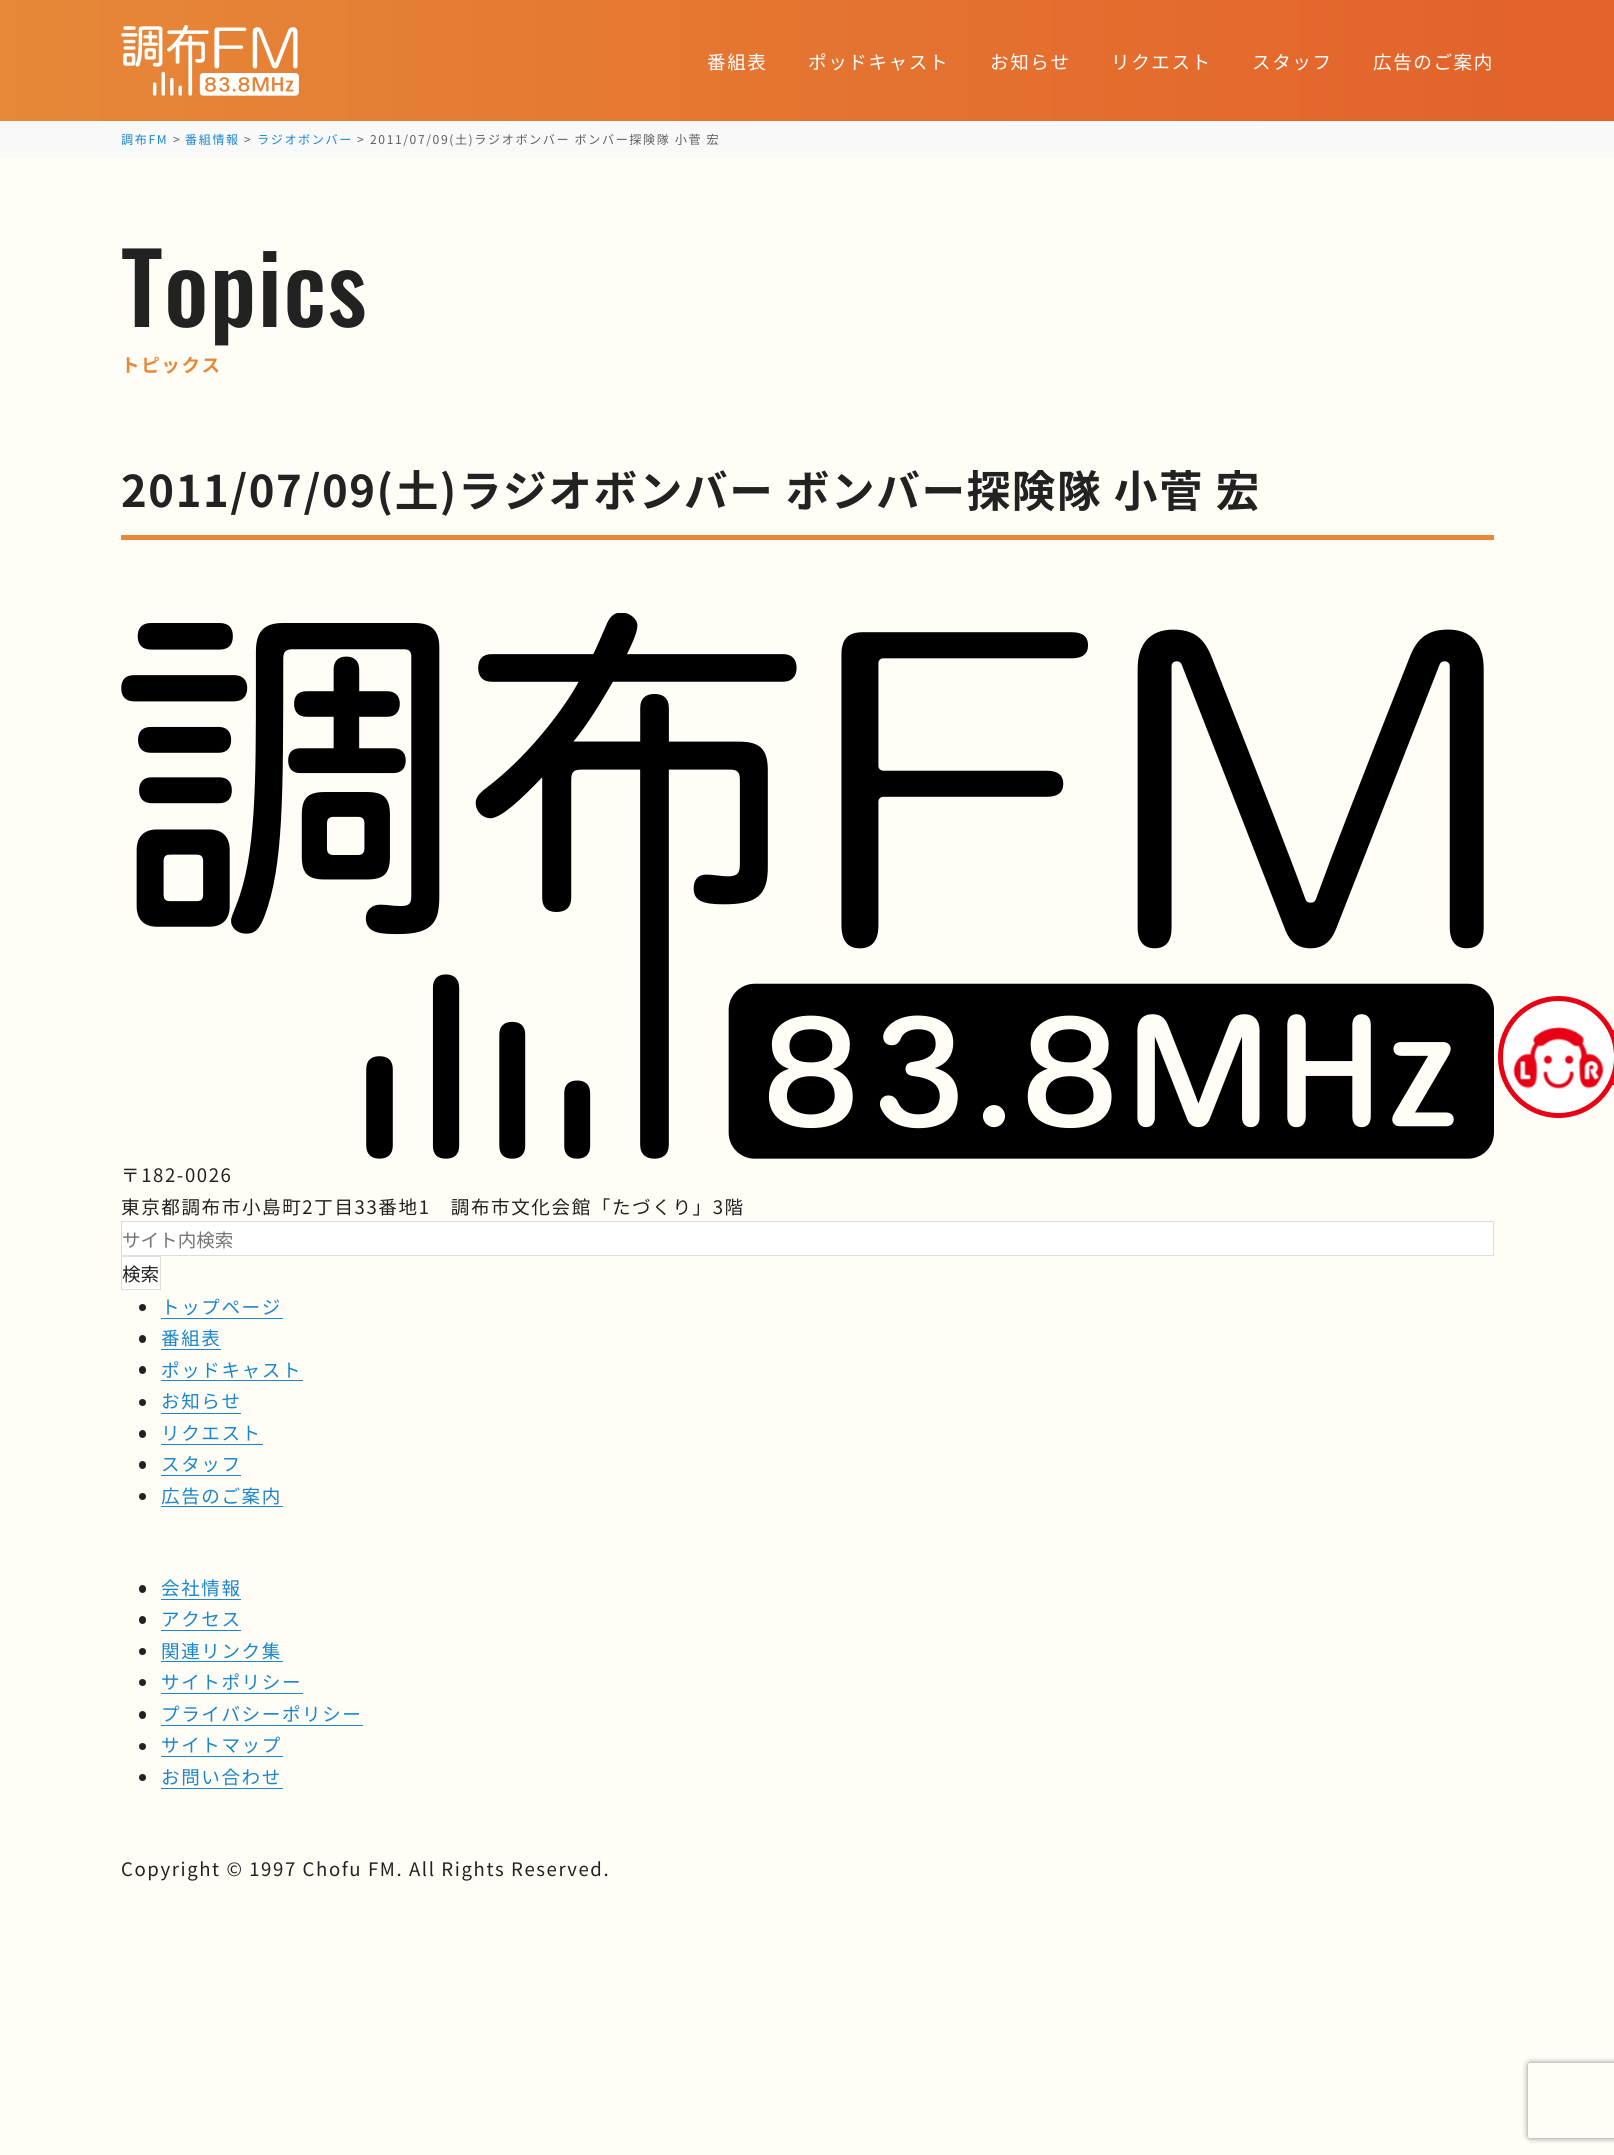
#include <cairo/cairo.h>
#include <math.h>
#include <stddef.h>

static cairo_t *cr;

static void use_color(int r, int g, int b) {
  cairo_set_source_rgb(cr, r / 255.0, g / 255.0, b / 255.0);
}

static void text(double x, double y, const char *s, const char *family, double size, int italic, int bold, int r, int g, int b) {
  cairo_select_font_face(cr, family, italic ? CAIRO_FONT_SLANT_ITALIC : CAIRO_FONT_SLANT_NORMAL,
    bold ? CAIRO_FONT_WEIGHT_BOLD : CAIRO_FONT_WEIGHT_NORMAL);
  cairo_set_font_size(cr, size);
  use_color(r, g, b);
  cairo_move_to(cr, x, y);
  cairo_show_text(cr, s);
}

static void spaced_text(double x, double y, const char *s, double letter, double word) {
  cairo_move_to(cr, x, y);
  while (*s) {
    char ch[5] = {0};
    int n = 0;
    do ch[n++] = *s++; while ((*s & 0xC0) == 0x80);
    cairo_show_text(cr, ch);
    cairo_rel_move_to(cr, letter + word * (*ch == ' '), 0);
  }
}

static void box(double x, double y, double w, double h, int r, int g, int b) {
  use_color(r, g, b);
  cairo_rectangle(cr, x, y, w, h);
  cairo_fill(cr);
}

static void round_rect(double x, double y, double w, double h, double r) {
  cairo_new_sub_path(cr);
  cairo_arc(cr, x + w - r, y + h - r, r, 0, M_PI / 2);
  cairo_arc(cr, x + r, y + h - r, r, M_PI / 2, M_PI);
  cairo_arc(cr, x + r, y + r, r, M_PI, 1.5 * M_PI);
  cairo_arc(cr, x + w - r, y + r, r, 1.5 * M_PI, 2 * M_PI);
  cairo_close_path(cr);
}

static void shadow(double x, double y, double w, double h, double r, double blur, double alpha) {
  cairo_push_group_with_content(cr, CAIRO_CONTENT_ALPHA);
  cairo_set_operator(cr, CAIRO_OPERATOR_SOURCE);
  for (int i = 15; i >= -15 && fmin(w, h) + blur * i / 3 > 0; i -= 2) {
    double e = blur * i / 6;
    cairo_set_source_rgba(cr, 0, 0, 0, alpha * erfc((i - 1) / 8.5) / 2);
    round_rect(x - e, y - e, w + 2 * e, h + 2 * e, fmax(0, fmin(r + e + blur * .6, fmin(w, h) / 2 + e)));
    cairo_fill(cr);
  }
  cairo_pattern_t *soft = cairo_pop_group(cr);
  cairo_mask(cr, soft);
  cairo_pattern_destroy(soft);
}

static void picture(const char *path, double x, double y, double w, double h) {
  cairo_surface_t *image = cairo_image_surface_create_from_png(path);
  cairo_save(cr);
  cairo_set_source_surface(cr, image, x, y);
  cairo_rectangle(cr, x, y, w, h);
  cairo_fill(cr);
  cairo_restore(cr);
  cairo_surface_destroy(image);
}

static void draw(void) {
  cairo_pattern_t *gradient;
  use_color(255, 253, 246);
  cairo_paint(cr);
  gradient = cairo_pattern_create_linear(0, 61, 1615, 61);
  cairo_pattern_add_color_stop_rgba(gradient, 0, 0.902, 0.533, 0.22, 1);
  cairo_pattern_add_color_stop_rgba(gradient, 1, 0.89, 0.38, 0.165, 1);
  cairo_set_source(cr, gradient);
  cairo_pattern_destroy(gradient);
  cairo_rectangle(cr, 0, 0, 1614, 121);
  cairo_fill(cr);
  picture("img_01.png", 121, 25, 178, 71);
  box(0, 121, 1614, 37, 249, 249, 249);
  box(121, 535, 1373, 5, 230, 136, 56);
  picture("img_02.png", 121, 613, 1373, 546);
  use_color(255, 255, 255);
  cairo_rectangle(cr, 121.5, 1221.5, 1372, 34);
  cairo_fill_preserve(cr);
  use_color(221, 221, 221);
  cairo_set_line_width(cr, 1);
  cairo_stroke(cr);
  use_color(255, 255, 255);
  cairo_rectangle(cr, 121.5, 1256.5, 39, 33);
  cairo_fill_preserve(cr);
  use_color(221, 221, 221);
  cairo_stroke(cr);
  use_color(34, 34, 34);
  cairo_arc(cr, 142.5, 1307.5, 3.5, 0, 2 * M_PI);
  cairo_fill(cr);
  box(161, 1318, 122, 1, 26, 134, 204);
  use_color(34, 34, 34);
  round_rect(139, 1335, 7, 8, 3.5);
  cairo_fill(cr);
  box(161, 1349, 60, 1, 26, 134, 204);
  use_color(34, 34, 34);
  round_rect(139, 1366, 7, 8, 3.5);
  cairo_fill(cr);
  box(161, 1380, 142, 1, 26, 134, 204);
  use_color(34, 34, 34);
  cairo_arc(cr, 142.5, 1402.5, 3.5, 0, 2 * M_PI);
  cairo_fill(cr);
  box(161, 1413, 80, 1, 26, 134, 204);
  use_color(34, 34, 34);
  round_rect(139, 1430, 7, 8, 3.5);
  cairo_fill(cr);
  box(161, 1444, 102, 1, 26, 134, 204);
  use_color(34, 34, 34);
  round_rect(139, 1461, 7, 8, 3.5);
  cairo_fill(cr);
  box(161, 1475, 80, 1, 26, 134, 204);
  use_color(34, 34, 34);
  cairo_arc(cr, 142.5, 1496.5, 3.5, 0, 2 * M_PI);
  cairo_fill(cr);
  box(161, 1506, 122, 1, 26, 134, 204);
  use_color(34, 34, 34);
  round_rect(139, 1585, 7, 8, 3.5);
  cairo_fill(cr);
  box(161, 1599, 80, 1, 26, 134, 204);
  use_color(34, 34, 34);
  round_rect(139, 1616, 7, 8, 3.5);
  cairo_fill(cr);
  box(161, 1630, 80, 1, 26, 134, 204);
  use_color(34, 34, 34);
  cairo_arc(cr, 142.5, 1651.5, 3.5, 0, 2 * M_PI);
  cairo_fill(cr);
  box(161, 1661, 122, 1, 26, 134, 204);
  use_color(34, 34, 34);
  cairo_arc(cr, 142.5, 1682.5, 3.5, 0, 2 * M_PI);
  cairo_fill(cr);
  box(161, 1693, 142, 1, 26, 134, 204);
  use_color(34, 34, 34);
  round_rect(139, 1711, 7, 8, 3.5);
  cairo_fill(cr);
  box(161, 1725, 202, 1, 26, 134, 204);
  use_color(34, 34, 34);
  cairo_arc(cr, 142.5, 1746.5, 3.5, 0, 2 * M_PI);
  cairo_fill(cr);
  box(161, 1756, 122, 1, 26, 134, 204);
  use_color(34, 34, 34);
  cairo_arc(cr, 142.5, 1777.5, 3.5, 0, 2 * M_PI);
  cairo_fill(cr);
  box(161, 1788, 122, 1, 26, 134, 204);
  cairo_rectangle(cr, 1511, 1032, 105, 51);
  use_color(232, 0, 21);
  cairo_set_line_width(cr, 4);
  cairo_stroke(cr);
  use_color(255, 255, 255);
  round_rect(1500.5, 998.5, 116, 117, 58);
  cairo_fill_preserve(cr);
  use_color(232, 0, 21);
  cairo_set_line_width(cr, 5);
  cairo_stroke(cr);
  picture("img_03.png", 1513, 1027, 91, 62);
  cairo_save(cr);
  cairo_set_fill_rule(cr, CAIRO_FILL_RULE_EVEN_ODD);
  cairo_new_path(cr);
  cairo_move_to(cr, 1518, 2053);
  cairo_line_to(cr, 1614, 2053);
  cairo_line_to(cr, 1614, 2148);
  cairo_line_to(cr, 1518, 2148);
  cairo_close_path(cr);
  cairo_move_to(cr, 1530.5, 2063);
  cairo_line_to(cr, 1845.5, 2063);
  cairo_curve_to(cr, 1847, 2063, 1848, 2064, 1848, 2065.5);
  cairo_line_to(cr, 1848, 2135.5);
  cairo_curve_to(cr, 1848, 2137, 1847, 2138, 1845.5, 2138);
  cairo_line_to(cr, 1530.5, 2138);
  cairo_curve_to(cr, 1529, 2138, 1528, 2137, 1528, 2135.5);
  cairo_line_to(cr, 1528, 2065.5);
  cairo_curve_to(cr, 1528, 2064, 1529, 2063, 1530.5, 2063);
  cairo_close_path(cr);
  cairo_clip(cr);
  use_color(128, 128, 128);
  shadow(1528, 2063, 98, 75, 2.5, 3, 1);
  cairo_restore(cr);
  cairo_select_font_face(cr, "Noto Sans JP", CAIRO_FONT_SLANT_NORMAL, CAIRO_FONT_WEIGHT_NORMAL);
  cairo_set_font_size(cr, 18.55);
  use_color(255, 255, 255);
  spaced_text(707, 69, "番組表", 1.6, 0);
  spaced_text(808, 69, "ポッドキャスト", 1.6, 0);
  spaced_text(990, 69, "お知らせ", 1.6, 0);
  spaced_text(1111, 69, "リクエスト", 1.6, 0);
  spaced_text(1252, 69, "スタッフ", 1.6, 0);
  spaced_text(1373, 69, "広告のご案内", 1.6, 0);
  cairo_set_font_size(cr, 12.1);
  use_color(26, 134, 204);
  spaced_text(121, 144, "調布FM", 1.6, 0);
  use_color(95, 95, 95);
  spaced_text(173, 144, ">", 1.6, 0);
  use_color(26, 134, 204);
  spaced_text(185, 144, "番組情報", 1.6, 0);
  use_color(95, 95, 95);
  spaced_text(244, 144, ">", 1.6, 0);
  use_color(26, 134, 204);
  spaced_text(257, 144, "ラジオボンバー", 1.6, 0);
  use_color(95, 95, 95);
  spaced_text(357, 144, ">", 1.6, 0);
  spaced_text(370, 144, "2011/07/09(土)ラジオボンバー ボンバー探険隊 小菅 宏", 1.6, 0);
  cairo_select_font_face(cr, "Oswald Medium", CAIRO_FONT_SLANT_NORMAL, CAIRO_FONT_WEIGHT_NORMAL);
  cairo_set_font_size(cr, 97);
  use_color(34, 34, 34);
  spaced_text(121, 327, "Topics", 1.6, 0);
  cairo_select_font_face(cr, "Noto Sans JP", CAIRO_FONT_SLANT_NORMAL, CAIRO_FONT_WEIGHT_BOLD);
  cairo_set_font_size(cr, 18.55);
  use_color(230, 136, 56);
  spaced_text(121, 372, "トピックス", 1.6, 0);
  cairo_set_font_size(cr, 43.6);
  use_color(34, 34, 34);
  spaced_text(121, 507, "2011/07/09(土)ラジオボンバー ボンバー探険隊 小菅 宏", 1.6, 0);
  cairo_select_font_face(cr, "Noto Sans JP", CAIRO_FONT_SLANT_NORMAL, CAIRO_FONT_WEIGHT_NORMAL);
  cairo_set_font_size(cr, 18.55);
  spaced_text(121, 1182, "〒182-0026", 1.6, 0);
  spaced_text(121, 1214, "東京都調布市小島町2丁目33番地1　調布市文化会館「たづくり」3階", 1.6, 0);
  text(122, 1247, "サイト内検索", "Noto Sans JP", 18.55, 0, 0, 117, 117, 117);
  text(122, 1281, "検索", "Noto Sans JP", 18.55, 0, 0, 34, 34, 34);
  use_color(26, 134, 204);
  spaced_text(161, 1314, "トップページ", 1.6, 0);
  spaced_text(161, 1345, "番組表", 1.6, 0);
  spaced_text(161, 1377, "ポッドキャスト", 1.6, 0);
  spaced_text(161, 1408, "お知らせ", 1.6, 0);
  spaced_text(161, 1440, "リクエスト", 1.6, 0);
  spaced_text(161, 1471, "スタッフ", 1.6, 0);
  spaced_text(161, 1503, "広告のご案内", 1.6, 0);
  spaced_text(161, 1595, "会社情報", 1.6, 0);
  spaced_text(161, 1626, "アクセス", 1.6, 0);
  spaced_text(161, 1658, "関連リンク集", 1.6, 0);
  spaced_text(161, 1689, "サイトポリシー", 1.6, 0);
  spaced_text(161, 1721, "プライバシーポリシー", 1.6, 0);
  spaced_text(161, 1752, "サイトマップ", 1.6, 0);
  spaced_text(161, 1784, "お問い合わせ", 1.6, 0);
  use_color(34, 34, 34);
  spaced_text(121, 1876, "Copyright © 1997 Chofu FM. All Rights Reserved.", 1.6, 0);
}

int main(void) {
  cairo_surface_t *surface = cairo_image_surface_create(CAIRO_FORMAT_RGB24, 1614, 2155);
  cr = cairo_create(surface);
  cairo_font_options_t *options = cairo_font_options_create();
  cairo_font_options_set_hint_metrics(options, CAIRO_HINT_METRICS_OFF);
  cairo_font_options_set_hint_style(options, CAIRO_HINT_STYLE_NONE);
  cairo_set_font_options(cr, options);
  cairo_set_miter_limit(cr, 4);
  draw();
  cairo_surface_write_to_png(surface, "out.png");
  cairo_font_options_destroy(options);
  cairo_destroy(cr);
  cairo_surface_destroy(surface);
  return 0;
}
